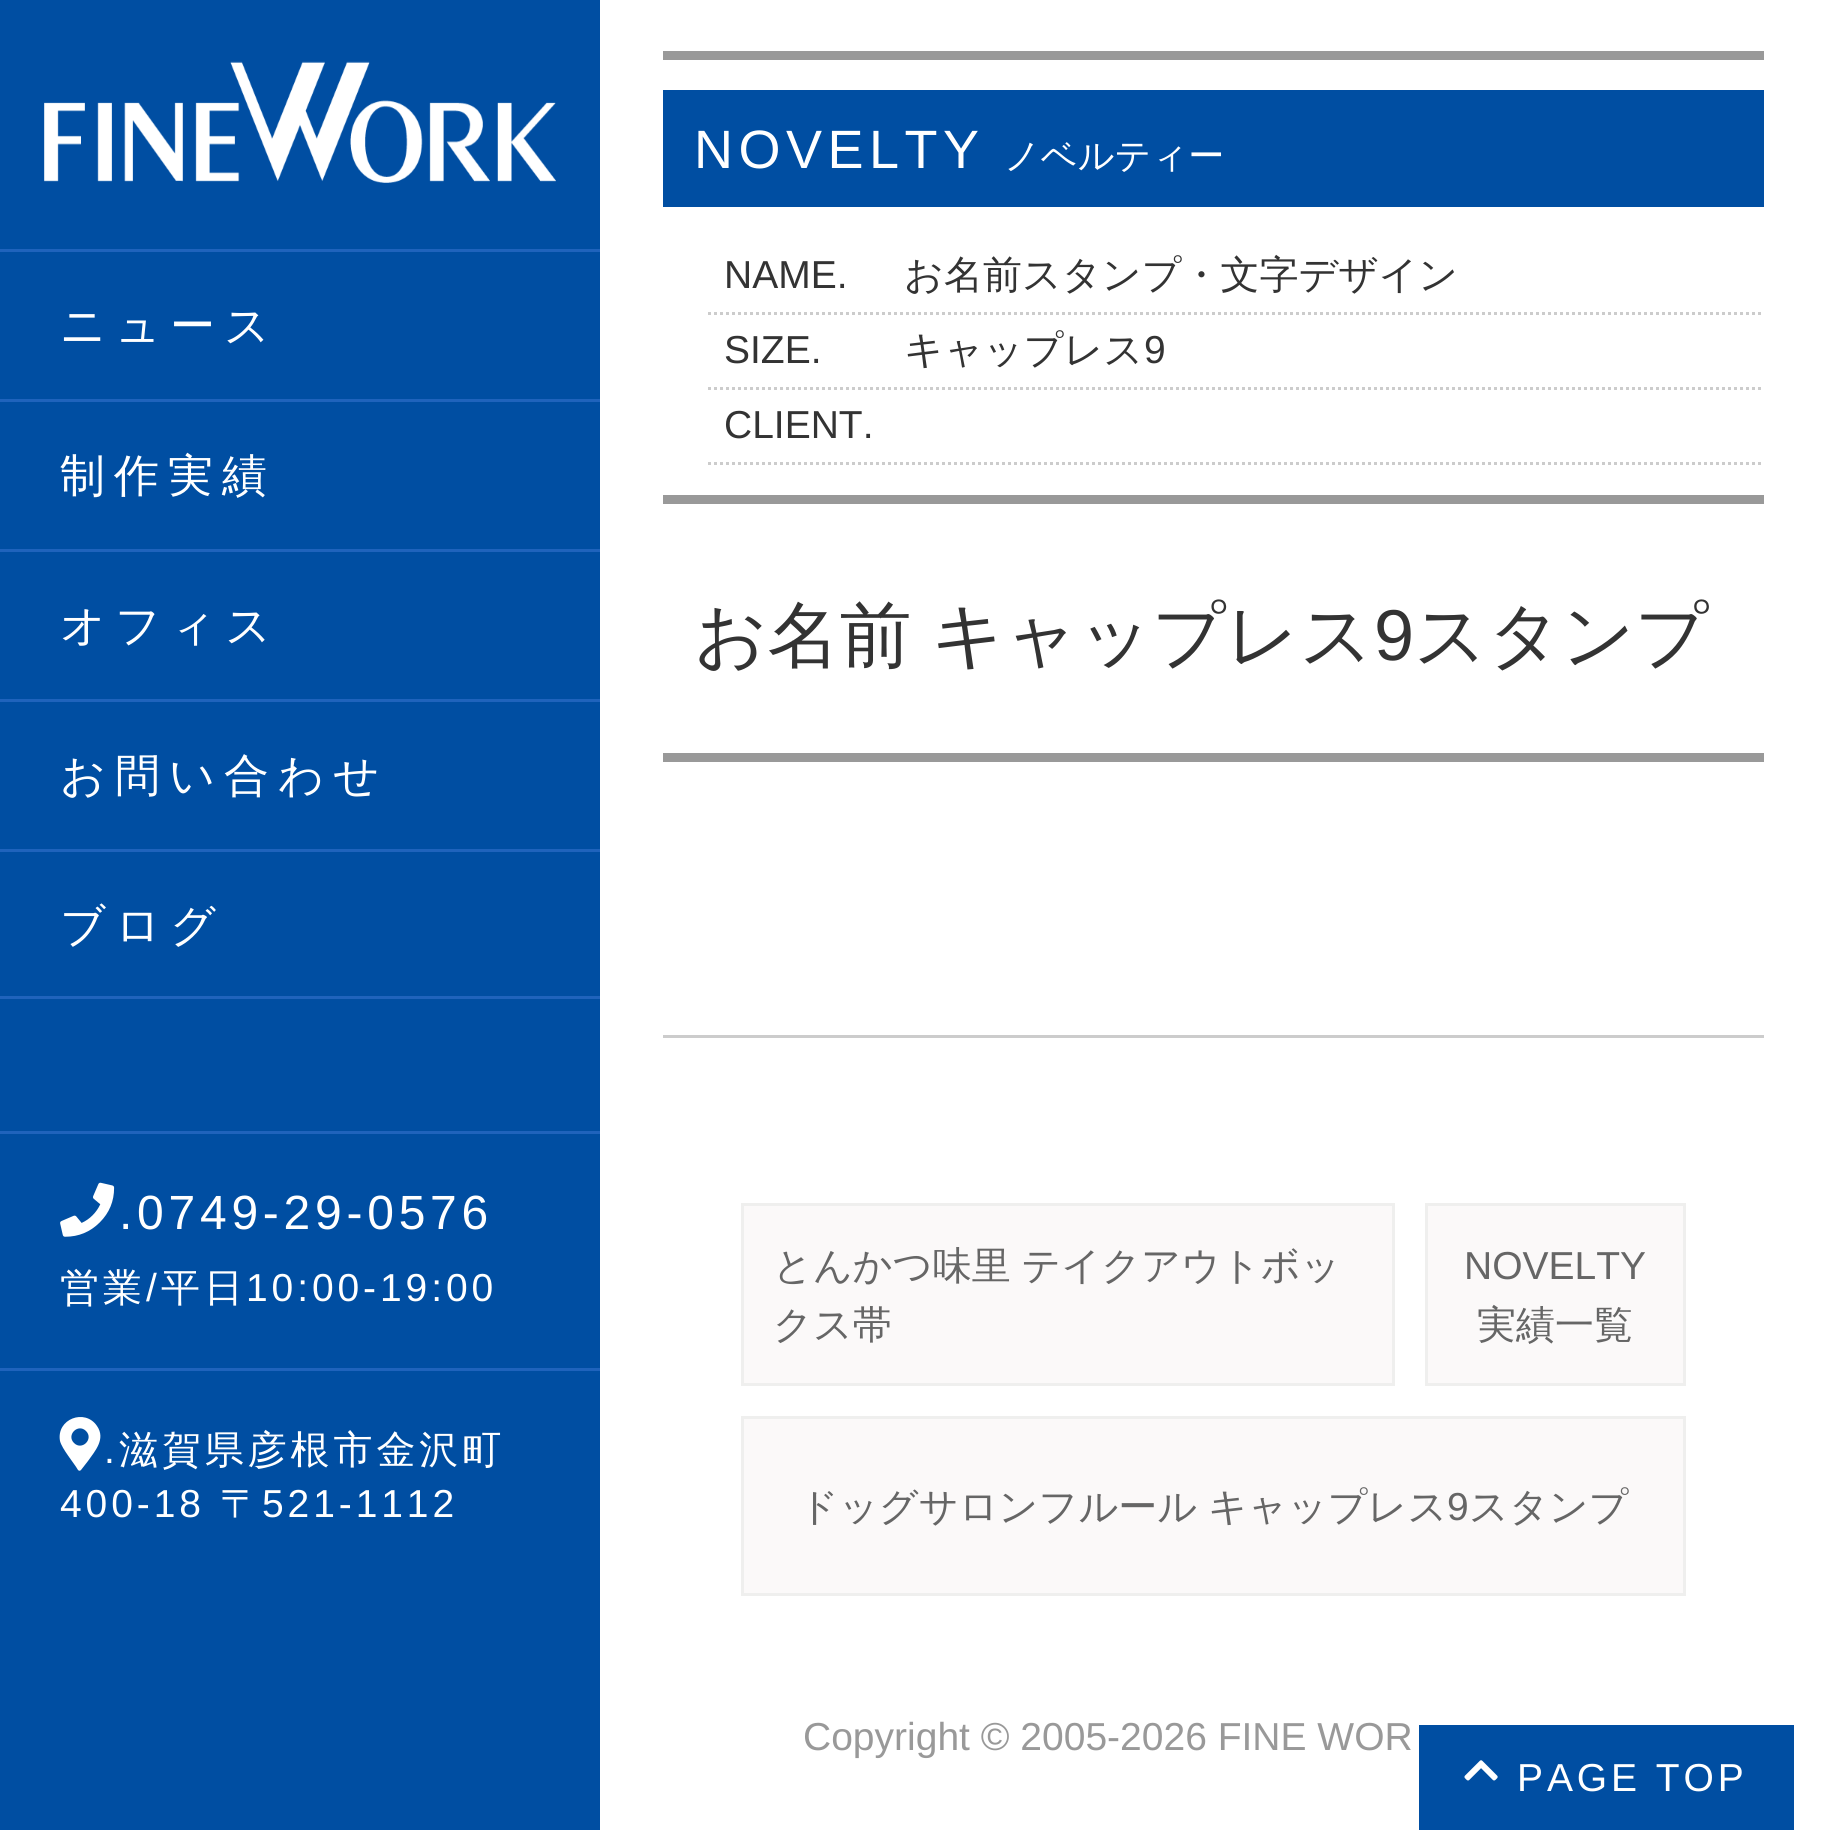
#include <cairo/cairo.h>
#include <math.h>
#include <stddef.h>

static cairo_t *cr;

static void use_color(int r, int g, int b) {
  cairo_set_source_rgb(cr, r / 255.0, g / 255.0, b / 255.0);
}

static void text(double x, double y, const char *s, const char *family, double size, int italic, int bold, int r, int g, int b) {
  cairo_select_font_face(cr, family, italic ? CAIRO_FONT_SLANT_ITALIC : CAIRO_FONT_SLANT_NORMAL,
    bold ? CAIRO_FONT_WEIGHT_BOLD : CAIRO_FONT_WEIGHT_NORMAL);
  cairo_set_font_size(cr, size);
  use_color(r, g, b);
  cairo_move_to(cr, x, y);
  cairo_show_text(cr, s);
}

static void spaced_text(double x, double y, const char *s, double letter, double word) {
  cairo_move_to(cr, x, y);
  while (*s) {
    char ch[5] = {0};
    int n = 0;
    do ch[n++] = *s++; while ((*s & 0xC0) == 0x80);
    cairo_show_text(cr, ch);
    cairo_rel_move_to(cr, letter + word * (*ch == ' '), 0);
  }
}

static void box(double x, double y, double w, double h, int r, int g, int b) {
  use_color(r, g, b);
  cairo_rectangle(cr, x, y, w, h);
  cairo_fill(cr);
}

static void picture(const char *path, double x, double y, double w, double h) {
  cairo_surface_t *image = cairo_image_surface_create_from_png(path);
  cairo_save(cr);
  cairo_set_source_surface(cr, image, x, y);
  cairo_rectangle(cr, x, y, w, h);
  cairo_fill(cr);
  cairo_restore(cr);
  cairo_surface_destroy(image);
}

static void draw(void) {
  use_color(255, 255, 255);
  cairo_paint(cr);
  box(0, 0, 600, 249, 0, 78, 162);
  picture("img_01.png", 44, 61, 512, 122);
  box(0, 252, 600, 1578, 0, 78, 162);
  box(0, 249, 600, 3, 31, 99, 188);
  box(0, 399, 600, 3, 31, 99, 188);
  box(0, 549, 600, 3, 31, 99, 188);
  box(0, 699, 600, 3, 31, 99, 188);
  box(0, 849, 600, 3, 31, 99, 188);
  box(0, 996, 600, 3, 31, 99, 188);
  box(0, 1131, 600, 3, 31, 99, 188);
  picture("img_02.png", 60, 1182, 55, 55);
  box(0, 1368, 600, 3, 31, 99, 188);
  use_color(255, 255, 255);
  cairo_new_path(cr);
  cairo_move_to(cr, 78, 1470);
  cairo_curve_to(cr, 74, 1463, 62, 1449, 60, 1441);
  cairo_curve_to(cr, 56, 1419, 85, 1408, 97, 1426);
  cairo_curve_to(cr, 106, 1439, 95, 1451, 88, 1461);
  cairo_line_to(cr, 81, 1470);
  cairo_curve_to(cr, 80, 1471, 79, 1471, 78, 1470);
  cairo_close_path(cr);
  cairo_move_to(cr, 74, 1443);
  cairo_curve_to(cr, 82, 1451, 94, 1439, 86, 1431);
  cairo_curve_to(cr, 78, 1423, 66, 1435, 74, 1443);
  cairo_close_path(cr);
  cairo_fill(cr);
  box(663, 51, 1101, 9, 153, 153, 153);
  box(663, 495, 1101, 9, 153, 153, 153);
  box(663, 90, 1101, 117, 0, 78, 162);
  cairo_new_path(cr);
  cairo_move_to(cr, 708, 313.5);
  cairo_line_to(cr, 1764, 313.5);
  use_color(204, 204, 204);
  cairo_set_line_width(cr, 3);
  cairo_set_dash(cr, (double[]){3, 3}, 2, 0);
  cairo_stroke(cr);
  cairo_new_path(cr);
  cairo_move_to(cr, 708, 388.5);
  cairo_line_to(cr, 1764, 388.5);
  cairo_stroke(cr);
  cairo_new_path(cr);
  cairo_move_to(cr, 708, 463.5);
  cairo_line_to(cr, 1764, 463.5);
  cairo_stroke(cr);
  box(663, 753, 1101, 9, 153, 153, 153);
  box(663, 1035, 1101, 3, 204, 204, 204);
  use_color(251, 249, 249);
  cairo_rectangle(cr, 742.5, 1204.5, 651, 180);
  cairo_fill_preserve(cr);
  use_color(239, 239, 238);
  cairo_set_dash(cr, NULL, 0, 0);
  cairo_stroke(cr);
  use_color(251, 249, 249);
  cairo_rectangle(cr, 1426.5, 1204.5, 258, 180);
  cairo_fill_preserve(cr);
  use_color(239, 239, 238);
  cairo_stroke(cr);
  use_color(251, 249, 249);
  cairo_rectangle(cr, 742.5, 1417.5, 942, 177);
  cairo_fill_preserve(cr);
  use_color(239, 239, 238);
  cairo_stroke(cr);
  box(1419, 1725, 375, 105, 0, 78, 162);
  picture("img_03.png", 1464, 1760, 34, 21);
  cairo_select_font_face(cr, "WenQuanYi Zen Hei Medium", CAIRO_FONT_SLANT_NORMAL, CAIRO_FONT_WEIGHT_NORMAL);
  cairo_set_font_size(cr, 45);
  use_color(255, 255, 255);
  spaced_text(60, 341, "ニュース", 9, 0);
  spaced_text(60, 491, "制作実績", 9, 0);
  spaced_text(60, 641, "オフィス", 9, 0);
  spaced_text(60, 791, "お問い合わせ", 9, 0);
  spaced_text(60, 941, "ブログ", 9, 0);
  cairo_select_font_face(cr, "Liberation Sans", CAIRO_FONT_SLANT_NORMAL, CAIRO_FONT_WEIGHT_NORMAL);
  cairo_set_font_size(cr, 48);
  spaced_text(119, 1229, ".0749-29-0576", 4.75, 0);
  cairo_select_font_face(cr, "WenQuanYi Zen Hei Medium", CAIRO_FONT_SLANT_NORMAL, CAIRO_FONT_WEIGHT_NORMAL);
  cairo_set_font_size(cr, 39);
  spaced_text(60, 1301, "営業", 3.9, 0);
  cairo_select_font_face(cr, "Liberation Sans", CAIRO_FONT_SLANT_NORMAL, CAIRO_FONT_WEIGHT_NORMAL);
  spaced_text(146, 1301, "/", 3.9, 0);
  cairo_select_font_face(cr, "WenQuanYi Zen Hei Medium", CAIRO_FONT_SLANT_NORMAL, CAIRO_FONT_WEIGHT_NORMAL);
  spaced_text(161, 1301, "平日", 3.9, 0);
  cairo_select_font_face(cr, "Liberation Sans", CAIRO_FONT_SLANT_NORMAL, CAIRO_FONT_WEIGHT_NORMAL);
  spaced_text(246, 1301, "10:00-19:00", 3.9, 0);
  spaced_text(104, 1463, ".", 3.9, 0);
  cairo_select_font_face(cr, "WenQuanYi Zen Hei Medium", CAIRO_FONT_SLANT_NORMAL, CAIRO_FONT_WEIGHT_NORMAL);
  spaced_text(119, 1463, "滋賀県彦根市金沢町", 3.9, 0);
  cairo_select_font_face(cr, "Liberation Sans", CAIRO_FONT_SLANT_NORMAL, CAIRO_FONT_WEIGHT_NORMAL);
  spaced_text(60, 1517, "400-18", 3.9, 0);
  cairo_select_font_face(cr, "WenQuanYi Zen Hei Medium", CAIRO_FONT_SLANT_NORMAL, CAIRO_FONT_WEIGHT_NORMAL);
  spaced_text(220, 1517, "〒", 3.9, 0);
  cairo_select_font_face(cr, "Liberation Sans", CAIRO_FONT_SLANT_NORMAL, CAIRO_FONT_WEIGHT_NORMAL);
  spaced_text(262, 1517, "521-1112", 3.9, 0);
  cairo_set_font_size(cr, 54);
  spaced_text(694, 168, "NOVELTY", 5.5, 0);
  text(1004, 168, "ノベルティー", "WenQuanYi Zen Hei Medium", 36, 0, 0, 255, 255, 255);
  text(724, 288, "NAME.", "Liberation Sans", 39, 0, 0, 51, 51, 51);
  text(904, 288, "お名前スタンプ・文字デザイン", "WenQuanYi Zen Hei Medium", 39, 0, 0, 51, 51, 51);
  text(724, 363, "SIZE.", "Liberation Sans", 39, 0, 0, 51, 51, 51);
  text(904, 363, "キャップレス", "WenQuanYi Zen Hei Medium", 39, 0, 0, 51, 51, 51);
  text(1144, 363, "9", "Liberation Sans", 39, 0, 0, 51, 51, 51);
  text(724, 438, "CLIENT.", "Liberation Sans", 39, 0, 0, 51, 51, 51);
  cairo_select_font_face(cr, "WenQuanYi Zen Hei Medium", CAIRO_FONT_SLANT_NORMAL, CAIRO_FONT_WEIGHT_NORMAL);
  cairo_set_font_size(cr, 72);
  spaced_text(694, 660, "お名前 キャップレス", 0, -2);
  text(1374, 660, "9", "Liberation Sans", 72, 0, 0, 51, 51, 51);
  text(1414, 660, "スタンプ", "WenQuanYi Zen Hei Medium", 72, 0, 0, 51, 51, 51);
  cairo_set_font_size(cr, 39);
  use_color(102, 102, 102);
  spaced_text(773, 1279, "とんかつ味里 テイクアウトボッ", 0, -1);
  text(773, 1338, "クス帯", "WenQuanYi Zen Hei Medium", 39, 0, 0, 102, 102, 102);
  text(1464, 1279, "NOVELTY", "Liberation Sans", 39, 0, 0, 102, 102, 102);
  text(1477, 1338, "実績一覧", "WenQuanYi Zen Hei Medium", 39, 0, 0, 102, 102, 102);
  spaced_text(799, 1520, "ドッグサロンフルール キャップレス", 0, -1);
  text(1447, 1520, "9", "Liberation Sans", 39, 0, 0, 102, 102, 102);
  text(1469, 1520, "スタンプ", "WenQuanYi Zen Hei Medium", 39, 0, 0, 102, 102, 102);
  text(803, 1750, "Copyright © 2005-2026 FINE WOR", "Liberation Sans", 39, 0, 0, 153, 153, 153);
  use_color(255, 255, 255);
  spaced_text(1517, 1791, "PAGE TOP", 3.9, 0);
}

int main(void) {
  cairo_surface_t *surface = cairo_image_surface_create(CAIRO_FORMAT_RGB24, 1822, 1830);
  cr = cairo_create(surface);
  cairo_font_options_t *options = cairo_font_options_create();
  cairo_font_options_set_hint_metrics(options, CAIRO_HINT_METRICS_OFF);
  cairo_font_options_set_hint_style(options, CAIRO_HINT_STYLE_NONE);
  cairo_set_font_options(cr, options);
  cairo_set_miter_limit(cr, 4);
  draw();
  cairo_surface_write_to_png(surface, "out.png");
  cairo_font_options_destroy(options);
  cairo_destroy(cr);
  cairo_surface_destroy(surface);
  return 0;
}
